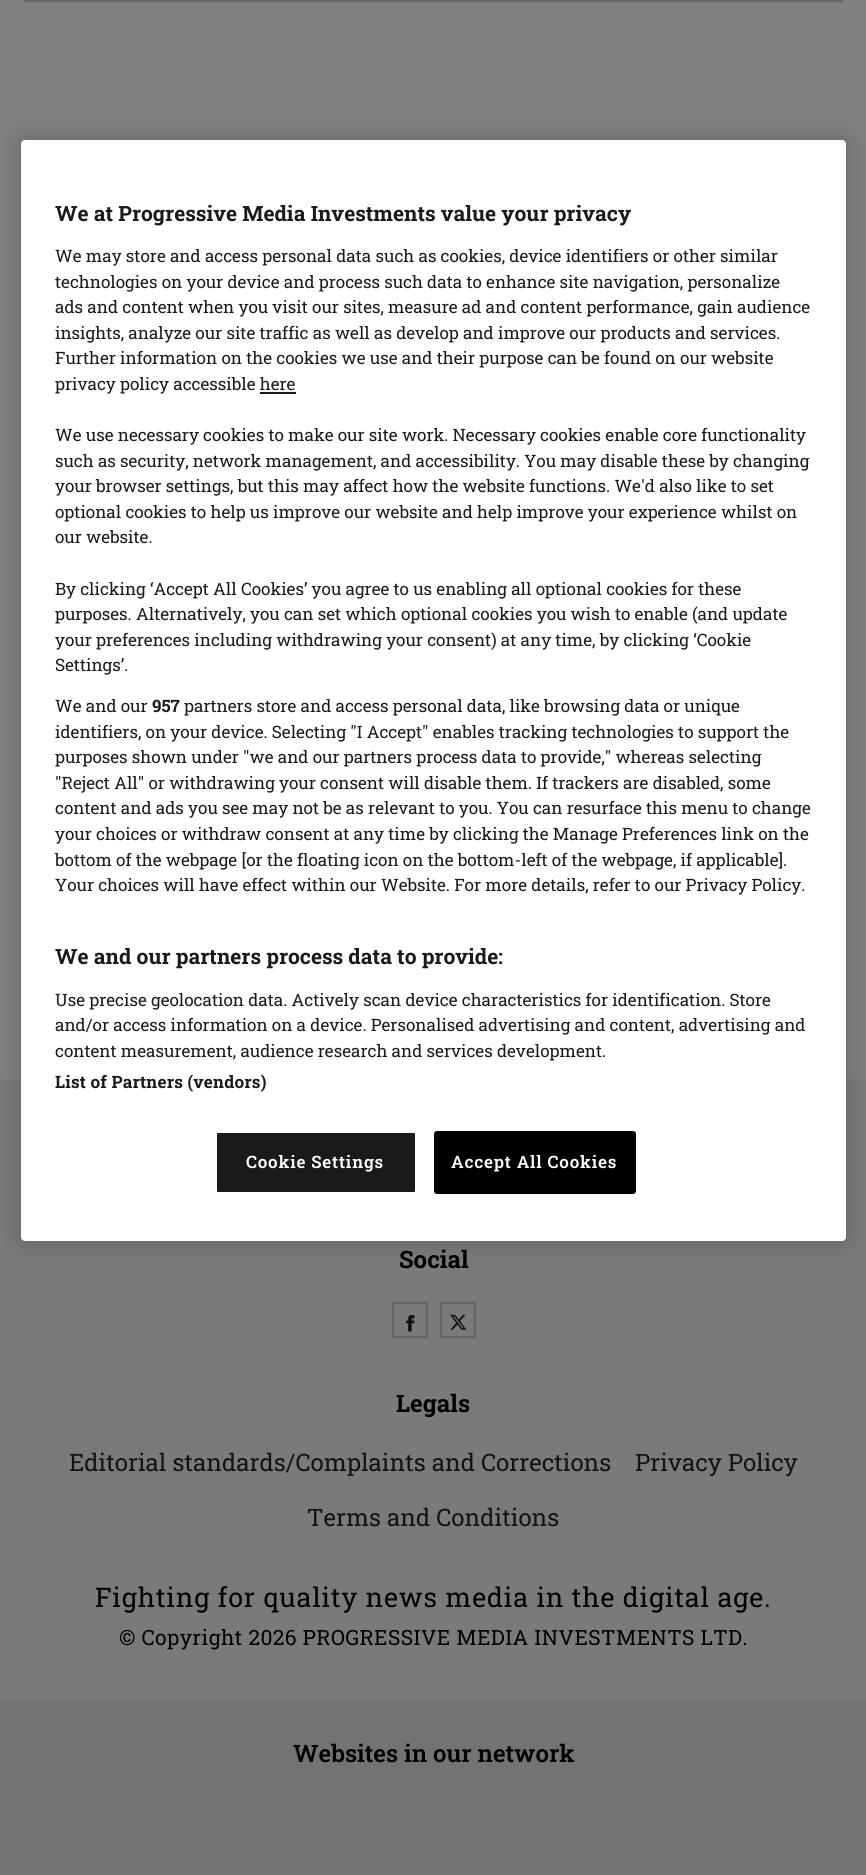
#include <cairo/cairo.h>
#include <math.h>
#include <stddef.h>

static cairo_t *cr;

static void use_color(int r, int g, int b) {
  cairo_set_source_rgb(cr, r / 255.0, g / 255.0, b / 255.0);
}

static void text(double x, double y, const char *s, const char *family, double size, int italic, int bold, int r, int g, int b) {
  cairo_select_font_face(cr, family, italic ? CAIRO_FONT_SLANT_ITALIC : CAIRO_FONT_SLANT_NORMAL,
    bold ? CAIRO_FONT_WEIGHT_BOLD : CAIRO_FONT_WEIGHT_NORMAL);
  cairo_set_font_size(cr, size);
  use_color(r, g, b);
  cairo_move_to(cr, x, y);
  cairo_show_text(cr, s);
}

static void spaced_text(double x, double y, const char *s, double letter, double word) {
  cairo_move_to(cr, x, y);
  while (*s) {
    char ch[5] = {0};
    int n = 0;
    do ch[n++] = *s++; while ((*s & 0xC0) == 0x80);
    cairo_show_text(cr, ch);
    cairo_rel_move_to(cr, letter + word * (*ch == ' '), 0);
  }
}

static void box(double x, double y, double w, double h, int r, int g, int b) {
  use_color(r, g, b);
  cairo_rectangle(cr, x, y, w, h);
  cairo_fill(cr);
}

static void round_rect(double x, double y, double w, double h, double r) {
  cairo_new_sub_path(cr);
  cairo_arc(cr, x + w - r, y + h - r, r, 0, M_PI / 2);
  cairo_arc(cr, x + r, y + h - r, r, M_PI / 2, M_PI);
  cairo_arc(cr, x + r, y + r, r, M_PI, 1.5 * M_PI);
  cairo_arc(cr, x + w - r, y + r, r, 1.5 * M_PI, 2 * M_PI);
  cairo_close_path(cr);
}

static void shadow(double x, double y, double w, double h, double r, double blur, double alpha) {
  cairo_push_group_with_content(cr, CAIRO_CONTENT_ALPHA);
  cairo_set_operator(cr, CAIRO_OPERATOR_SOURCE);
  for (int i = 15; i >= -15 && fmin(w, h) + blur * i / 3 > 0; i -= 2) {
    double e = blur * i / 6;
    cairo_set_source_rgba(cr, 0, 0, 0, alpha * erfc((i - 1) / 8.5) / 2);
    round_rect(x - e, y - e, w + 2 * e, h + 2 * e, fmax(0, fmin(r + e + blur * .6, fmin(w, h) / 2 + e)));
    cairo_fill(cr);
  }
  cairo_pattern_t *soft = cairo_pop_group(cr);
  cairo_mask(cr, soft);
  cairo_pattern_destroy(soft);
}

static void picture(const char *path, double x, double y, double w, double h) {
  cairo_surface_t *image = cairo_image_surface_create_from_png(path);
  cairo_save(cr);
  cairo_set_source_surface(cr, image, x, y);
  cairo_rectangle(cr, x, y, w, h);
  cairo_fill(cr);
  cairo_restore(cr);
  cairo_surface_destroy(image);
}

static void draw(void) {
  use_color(128, 128, 128);
  cairo_paint(cr);
  box(24, 0, 819, 2, 102, 102, 102);
  box(0, 1079, 866, 622, 122, 122, 122);
  use_color(0, 0, 0);
  shadow(21, 140, 825, 1101, 4, 13.5, 0.2);
  use_color(255, 255, 255);
  round_rect(21, 140, 825, 1101, 4);
  cairo_fill(cr);
  box(260, 392, 36, 2, 26, 26, 26);
  round_rect(216, 1132, 200, 61, 2);
  cairo_fill_preserve(cr);
  use_color(255, 255, 255);
  cairo_stroke(cr);
  use_color(0, 0, 0);
  round_rect(435, 1132, 200, 61, 2);
  cairo_fill_preserve(cr);
  cairo_stroke(cr);
  cairo_rectangle(cr, 393, 1303, 34, 34);
  use_color(102, 102, 102);
  cairo_stroke(cr);
  picture("img_01.png", 406, 1315, 9, 17);
  cairo_rectangle(cr, 441, 1303, 34, 34);
  cairo_stroke(cr);
  picture("img_02.png", 450, 1314, 17, 16);
  box(0, 1701, 866, 174, 115, 115, 115);
  text(55, 221, "We at Progressive Media Investments value your privacy", "Roboto Slab", 21, 0, 1, 26, 26, 26);
  text(55, 262, "We may store and access personal data such as cookies, device identifiers or other similar", "Roboto Slab", 17.05, 0, 0, 26, 26, 26);
  text(55, 288, "technologies on your device and process such data to enhance site navigation, personalize", "Roboto Slab", 17.05, 0, 0, 26, 26, 26);
  text(55, 313, "ads and content when you visit our sites, measure ad and content performance, gain audience", "Roboto Slab", 17.05, 0, 0, 26, 26, 26);
  text(55, 339, "insights, analyze our site traffic as well as develop and improve our products and services.", "Roboto Slab", 17.05, 0, 0, 26, 26, 26);
  text(55, 364, "Further information on the cookies we use and their purpose can be found on our website", "Roboto Slab", 17.05, 0, 0, 26, 26, 26);
  text(55, 390, "privacy policy accessible here", "Roboto Slab", 17.05, 0, 0, 26, 26, 26);
  text(55, 441, "We use necessary cookies to make our site work. Necessary cookies enable core functionality", "Roboto Slab", 17.05, 0, 0, 26, 26, 26);
  text(55, 467, "such as security, network management, and accessibility. You may disable these by changing", "Roboto Slab", 17.05, 0, 0, 26, 26, 26);
  text(55, 492, "your browser settings, but this may affect how the website functions. We'd also like to set", "Roboto Slab", 17.05, 0, 0, 26, 26, 26);
  text(55, 518, "optional cookies to help us improve our website and help improve your experience whilst on", "Roboto Slab", 17.05, 0, 0, 26, 26, 26);
  text(55, 543, "our website.", "Roboto Slab", 17.05, 0, 0, 26, 26, 26);
  text(55, 595, "By clicking ‘Accept All Cookies’ you agree to us enabling all optional cookies for these", "Roboto Slab", 17.05, 0, 0, 26, 26, 26);
  text(55, 620, "purposes. Alternatively, you can set which optional cookies you wish to enable (and update", "Roboto Slab", 17.05, 0, 0, 26, 26, 26);
  text(55, 646, "your preferences including withdrawing your consent) at any time, by clicking ‘Cookie", "Roboto Slab", 17.05, 0, 0, 26, 26, 26);
  text(55, 671, "Settings’.", "Roboto Slab", 17.05, 0, 0, 26, 26, 26);
  text(55, 712, "We and our", "Roboto Slab", 17.05, 0, 0, 26, 26, 26);
  text(152, 712, "957", "Roboto Slab", 17.05, 0, 1, 26, 26, 26);
  text(184, 712, "partners store and access personal data, like browsing data or unique", "Roboto Slab", 17.05, 0, 0, 26, 26, 26);
  text(55, 738, "identifiers, on your device. Selecting \"I Accept\" enables tracking technologies to support the", "Roboto Slab", 17.05, 0, 0, 26, 26, 26);
  text(55, 763, "purposes shown under \"we and our partners process data to provide,\" whereas selecting", "Roboto Slab", 17.05, 0, 0, 26, 26, 26);
  text(55, 789, "\"Reject All\" or withdrawing your consent will disable them. If trackers are disabled, some", "Roboto Slab", 17.05, 0, 0, 26, 26, 26);
  text(55, 814, "content and ads you see may not be as relevant to you. You can resurface this menu to change", "Roboto Slab", 17.05, 0, 0, 26, 26, 26);
  text(55, 840, "your choices or withdraw consent at any time by clicking the Manage Preferences link on the", "Roboto Slab", 17.05, 0, 0, 26, 26, 26);
  text(55, 866, "bottom of the webpage [or the floating icon on the bottom-left of the webpage, if applicable].", "Roboto Slab", 17.05, 0, 0, 26, 26, 26);
  text(55, 891, "Your choices will have effect within our Website. For more details, refer to our Privacy Policy.", "Roboto Slab", 17.05, 0, 0, 26, 26, 26);
  text(55, 964, "We and our partners process data to provide:", "Roboto Slab", 21, 0, 1, 26, 26, 26);
  text(55, 1006, "Use precise geolocation data. Actively scan device characteristics for identification. Store", "Roboto Slab", 17.05, 0, 0, 26, 26, 26);
  text(55, 1031, "and/or access information on a device. Personalised advertising and content, advertising and", "Roboto Slab", 17.05, 0, 0, 26, 26, 26);
  text(55, 1057, "content measurement, audience research and services development.", "Roboto Slab", 17.05, 0, 0, 26, 26, 26);
  cairo_select_font_face(cr, "Roboto Slab", CAIRO_FONT_SLANT_NORMAL, CAIRO_FONT_WEIGHT_BOLD);
  spaced_text(55, 1088, "List of Partners (vendors)", 0.2, 0);
  cairo_select_font_face(cr, "Roboto Slab SemiBold", CAIRO_FONT_SLANT_NORMAL, CAIRO_FONT_WEIGHT_NORMAL);
  use_color(255, 255, 255);
  spaced_text(246, 1168, "Cookie Settings", 0.8, 0);
  spaced_text(451, 1168, "Accept All Cookies", 0.8, 0);
  text(399, 1268, "Social", "Roboto Slab", 24, 0, 1, 0, 0, 0);
  text(396, 1412, "Legals", "Roboto Slab", 24, 0, 1, 0, 0, 0);
  text(69, 1471, "Editorial standards/Complaints and Corrections", "Roboto Slab", 24, 0, 0, 19, 19, 18);
  text(635, 1471, "Privacy Policy", "Roboto Slab", 24, 0, 0, 19, 19, 18);
  text(307, 1526, "Terms and Conditions", "Roboto Slab", 24, 0, 0, 19, 19, 18);
  cairo_set_font_size(cr, 27);
  use_color(0, 0, 0);
  spaced_text(95, 1607, "Fighting for quality news media in the digital age.", 0.8, 0);
  cairo_set_font_size(cr, 21);
  spaced_text(119, 1645, "© Copyright 2026 PROGRESSIVE MEDIA INVESTMENTS LTD.", 0.42, 0);
  text(293, 1762, "Websites in our network", "Roboto Slab SemiBold", 24, 0, 0, 0, 0, 0);
}

int main(void) {
  cairo_surface_t *surface = cairo_image_surface_create(CAIRO_FORMAT_RGB24, 866, 1875);
  cr = cairo_create(surface);
  cairo_font_options_t *options = cairo_font_options_create();
  cairo_font_options_set_hint_metrics(options, CAIRO_HINT_METRICS_OFF);
  cairo_font_options_set_hint_style(options, CAIRO_HINT_STYLE_NONE);
  cairo_set_font_options(cr, options);
  cairo_set_miter_limit(cr, 4);
  draw();
  cairo_surface_write_to_png(surface, "out.png");
  cairo_font_options_destroy(options);
  cairo_destroy(cr);
  cairo_surface_destroy(surface);
  return 0;
}
